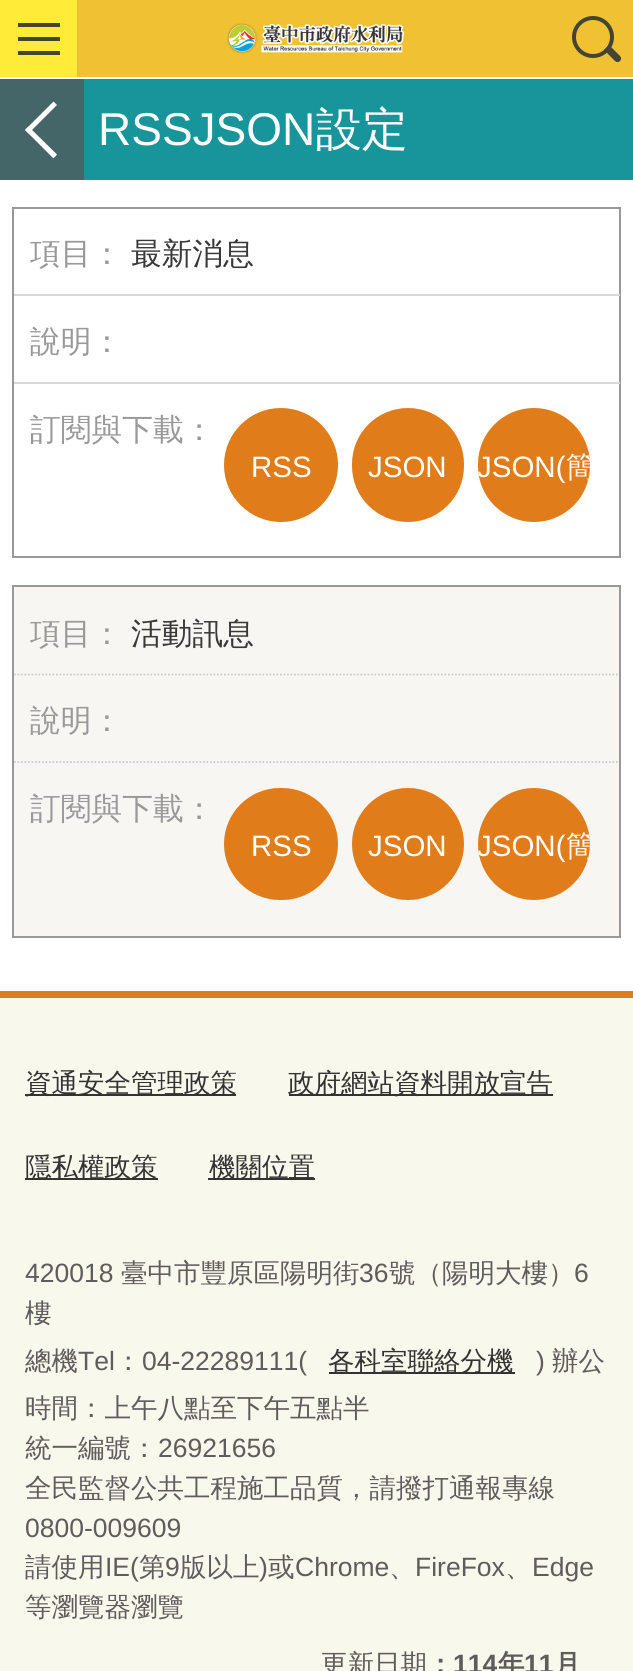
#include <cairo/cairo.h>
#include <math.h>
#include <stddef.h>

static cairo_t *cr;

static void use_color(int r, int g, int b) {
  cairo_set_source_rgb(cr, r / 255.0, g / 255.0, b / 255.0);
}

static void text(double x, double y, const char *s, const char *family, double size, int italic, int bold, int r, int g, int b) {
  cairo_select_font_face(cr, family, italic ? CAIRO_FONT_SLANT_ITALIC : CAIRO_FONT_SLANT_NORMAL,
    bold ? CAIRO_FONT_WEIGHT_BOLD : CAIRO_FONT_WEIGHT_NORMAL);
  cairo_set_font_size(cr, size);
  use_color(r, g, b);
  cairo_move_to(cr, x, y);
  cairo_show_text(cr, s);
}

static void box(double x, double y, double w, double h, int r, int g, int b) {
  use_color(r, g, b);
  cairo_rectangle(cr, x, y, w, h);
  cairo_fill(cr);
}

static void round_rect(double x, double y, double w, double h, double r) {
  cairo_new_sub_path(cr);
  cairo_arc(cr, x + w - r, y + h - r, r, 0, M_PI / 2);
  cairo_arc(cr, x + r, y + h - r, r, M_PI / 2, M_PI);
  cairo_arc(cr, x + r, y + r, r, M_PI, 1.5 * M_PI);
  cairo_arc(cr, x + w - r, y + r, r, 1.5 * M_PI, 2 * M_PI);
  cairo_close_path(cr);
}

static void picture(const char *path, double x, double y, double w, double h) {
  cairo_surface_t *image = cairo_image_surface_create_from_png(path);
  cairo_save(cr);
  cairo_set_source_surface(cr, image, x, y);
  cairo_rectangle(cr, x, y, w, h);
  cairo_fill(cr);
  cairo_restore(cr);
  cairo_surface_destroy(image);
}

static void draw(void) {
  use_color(255, 255, 255);
  cairo_paint(cr);
  box(77, 0, 556, 77, 240, 193, 51);
  box(0, 0, 77, 77, 255, 235, 56);
  box(18, 51, 42, 4, 68, 68, 51);
  box(18, 23, 42, 4, 68, 68, 51);
  box(18, 37, 42, 4, 68, 68, 51);
  picture("img_01.png", 227, 23, 178, 31);
  cairo_arc(cr, 593, 37, 19, 0, 2 * M_PI);
  cairo_set_line_width(cr, 4);
  cairo_stroke(cr);
  cairo_new_path(cr);
  cairo_move_to(cr, 609, 45);
  cairo_line_to(cr, 620, 56);
  cairo_curve_to(cr, 621.5, 57.5, 621.5, 59.5, 620, 61);
  cairo_curve_to(cr, 619, 62.5, 616.5, 62.5, 615, 61);
  cairo_line_to(cr, 604, 50);
  cairo_close_path(cr);
  cairo_fill(cr);
  box(84, 79, 549, 101, 24, 149, 154);
  box(0, 79, 84, 101, 69, 102, 104);
  use_color(255, 255, 255);
  cairo_new_path(cr);
  cairo_move_to(cr, 28.5, 126.5);
  cairo_line_to(cr, 57, 154.5);
  cairo_line_to(cr, 53.5, 158.5);
  cairo_line_to(cr, 25, 130);
  cairo_close_path(cr);
  cairo_fill(cr);
  cairo_new_path(cr);
  cairo_move_to(cr, 53.5, 101.5);
  cairo_line_to(cr, 57, 105);
  cairo_line_to(cr, 28.5, 133.5);
  cairo_line_to(cr, 25, 130);
  cairo_close_path(cr);
  cairo_fill(cr);
  cairo_rectangle(cr, 13, 208, 607, 349);
  use_color(153, 153, 153);
  cairo_set_line_width(cr, 2);
  cairo_stroke(cr);
  box(14, 294, 606, 2, 216, 216, 216);
  box(14, 382, 606, 2, 216, 216, 216);
  use_color(225, 124, 26);
  cairo_arc(cr, 281, 465, 57, 0, 2 * M_PI);
  cairo_fill(cr);
  round_rect(352, 408, 112, 114, 56);
  cairo_fill(cr);
  round_rect(478, 408, 112, 114, 56);
  cairo_fill(cr);
  use_color(247, 246, 242);
  cairo_rectangle(cr, 13, 586, 607, 351);
  cairo_fill_preserve(cr);
  use_color(153, 153, 153);
  cairo_stroke(cr);
  cairo_new_path(cr);
  cairo_move_to(cr, 14, 674.5);
  cairo_line_to(cr, 619.5, 674.5);
  use_color(204, 204, 204);
  cairo_set_line_width(cr, 1.8);
  cairo_set_dash(cr, (double[]){1.75, 1.75}, 2, 0);
  cairo_stroke(cr);
  cairo_new_path(cr);
  cairo_move_to(cr, 14, 762);
  cairo_line_to(cr, 619.5, 762);
  cairo_stroke(cr);
  use_color(225, 124, 26);
  round_rect(224, 788, 114, 112, 56);
  cairo_fill(cr);
  cairo_arc(cr, 408, 844, 56, 0, 2 * M_PI);
  cairo_fill(cr);
  cairo_arc(cr, 534, 844, 56, 0, 2 * M_PI);
  cairo_fill(cr);
  box(0, 998, 633, 673, 249, 248, 236);
  box(0, 991, 633, 7, 225, 124, 26);
  box(25, 1094, 211, 2, 51, 51, 51);
  box(289, 1094, 264, 2, 51, 51, 51);
  box(25, 1178, 133, 2, 51, 51, 51);
  box(208, 1178, 107, 2, 51, 51, 51);
  box(329, 1372, 186, 2, 51, 51, 51);
  text(98, 145, "RSSJSON", "Liberation Sans", 46, 0, 0, 255, 255, 255);
  text(316, 145, "設定", "WenQuanYi Zen Hei Medium", 46, 0, 0, 255, 255, 255);
  text(30, 264, "項目：", "WenQuanYi Zen Hei Medium", 30.75, 0, 0, 153, 153, 153);
  text(131, 264, "最新消息", "WenQuanYi Zen Hei Medium", 30.75, 0, 0, 57, 57, 57);
  text(30, 352, "說明：", "WenQuanYi Zen Hei Medium", 30.75, 0, 0, 153, 153, 153);
  text(30, 440, "訂閱與下載：", "WenQuanYi Zen Hei Medium", 30.75, 0, 0, 153, 153, 153);
  text(251, 477, "RSS", "Liberation Sans", 29.5, 0, 0, 255, 255, 255);
  text(368, 477, "JSON", "Liberation Sans", 29.5, 0, 0, 255, 255, 255);
  cairo_save(cr);
  round_rect(478, 408, 112, 114, 56);
  cairo_clip(cr);
  text(477, 477, "JSON(", "Liberation Sans", 29.5, 0, 0, 255, 255, 255);
  text(566, 477, "簡", "WenQuanYi Zen Hei Medium", 29.5, 0, 0, 255, 255, 255);
  cairo_restore(cr);
  text(30, 644, "項目：", "WenQuanYi Zen Hei Medium", 30.75, 0, 0, 153, 153, 153);
  text(131, 644, "活動訊息", "WenQuanYi Zen Hei Medium", 30.75, 0, 0, 57, 57, 57);
  text(30, 731, "說明：", "WenQuanYi Zen Hei Medium", 30.75, 0, 0, 153, 153, 153);
  text(30, 819, "訂閱與下載：", "WenQuanYi Zen Hei Medium", 30.75, 0, 0, 153, 153, 153);
  text(251, 856, "RSS", "Liberation Sans", 29.5, 0, 0, 255, 255, 255);
  text(368, 856, "JSON", "Liberation Sans", 29.5, 0, 0, 255, 255, 255);
  cairo_save(cr);
  round_rect(478, 788, 112, 112, 56);
  cairo_clip(cr);
  text(477, 856, "JSON(", "Liberation Sans", 29.5, 0, 0, 255, 255, 255);
  text(566, 856, "簡", "WenQuanYi Zen Hei Medium", 29.5, 0, 0, 255, 255, 255);
  cairo_restore(cr);
  text(25, 1092, "資通安全管理政策", "WenQuanYi Zen Hei Medium", 26.5, 0, 0, 51, 51, 51);
  text(288, 1092, "政府網站資料開放宣告", "WenQuanYi Zen Hei Medium", 26.5, 0, 0, 51, 51, 51);
  text(25, 1176, "隱私權政策", "WenQuanYi Zen Hei Medium", 26.5, 0, 0, 51, 51, 51);
  text(209, 1176, "機關位置", "WenQuanYi Zen Hei Medium", 26.5, 0, 0, 51, 51, 51);
  text(25, 1282, "420018", "Liberation Sans", 26.5, 0, 0, 95, 92, 92);
  text(121, 1282, "臺中市豐原區陽明街", "WenQuanYi Zen Hei Medium", 26.5, 0, 0, 95, 92, 92);
  text(359, 1282, "36", "Liberation Sans", 26.5, 0, 0, 95, 92, 92);
  text(389, 1282, "號（陽明大樓）", "WenQuanYi Zen Hei Medium", 26.5, 0, 0, 95, 92, 92);
  text(574, 1282, "6", "Liberation Sans", 26.5, 0, 0, 95, 92, 92);
  text(25, 1322, "樓", "WenQuanYi Zen Hei Medium", 26.5, 0, 0, 95, 92, 92);
  text(25, 1370, "總機", "WenQuanYi Zen Hei Medium", 26.5, 0, 0, 95, 92, 92);
  text(78, 1370, "Tel", "Liberation Sans", 26.5, 0, 0, 95, 92, 92);
  text(115, 1370, "：", "WenQuanYi Zen Hei Medium", 26.5, 0, 0, 95, 92, 92);
  text(142, 1370, "04-22289111(", "Liberation Sans", 26.5, 0, 0, 95, 92, 92);
  text(328, 1370, "各科室聯絡分機", "WenQuanYi Zen Hei Medium", 26.5, 0, 0, 51, 51, 51);
  text(536, 1370, ")", "Liberation Sans", 26.5, 0, 0, 95, 92, 92);
  text(552, 1370, "辦公", "WenQuanYi Zen Hei Medium", 26.5, 0, 0, 95, 92, 92);
  text(25, 1417, "時間：上午八點至下午五點半", "WenQuanYi Zen Hei Medium", 26.5, 0, 0, 95, 92, 92);
  text(25, 1457, "統一編號：", "WenQuanYi Zen Hei Medium", 26.5, 0, 0, 95, 92, 92);
  text(158, 1457, "26921656", "Liberation Sans", 26.5, 0, 0, 95, 92, 92);
  text(25, 1497, "全民監督公共工程施工品質，請撥打通報專線", "WenQuanYi Zen Hei Medium", 26.5, 0, 0, 95, 92, 92);
  text(25, 1537, "0800-009609", "Liberation Sans", 26.5, 0, 0, 95, 92, 92);
  text(25, 1576, "請使用", "WenQuanYi Zen Hei Medium", 26.5, 0, 0, 95, 92, 92);
  text(105, 1576, "IE(", "Liberation Sans", 26.5, 0, 0, 95, 92, 92);
  text(139, 1576, "第", "WenQuanYi Zen Hei Medium", 26.5, 0, 0, 95, 92, 92);
  text(165, 1576, "9", "Liberation Sans", 26.5, 0, 0, 95, 92, 92);
  text(180, 1576, "版以上", "WenQuanYi Zen Hei Medium", 26.5, 0, 0, 95, 92, 92);
  text(259, 1576, ")", "Liberation Sans", 26.5, 0, 0, 95, 92, 92);
  text(268, 1576, "或", "WenQuanYi Zen Hei Medium", 26.5, 0, 0, 95, 92, 92);
  text(295, 1576, "Chrome", "Liberation Sans", 26.5, 0, 0, 95, 92, 92);
  text(389, 1576, "、", "WenQuanYi Zen Hei Medium", 26.5, 0, 0, 95, 92, 92);
  text(415, 1576, "FireFox", "Liberation Sans", 26.5, 0, 0, 95, 92, 92);
  text(505, 1576, "、", "WenQuanYi Zen Hei Medium", 26.5, 0, 0, 95, 92, 92);
  text(532, 1576, "Edge", "Liberation Sans", 26.5, 0, 0, 95, 92, 92);
  text(25, 1616, "等瀏覽器瀏覽", "WenQuanYi Zen Hei Medium", 26.5, 0, 0, 95, 92, 92);
  text(321, 1673, "更新日期", "WenQuanYi Zen Hei Medium", 26.5, 0, 0, 95, 92, 92);
  text(427, 1673, "：", "WenQuanYi Zen Hei", 26.5, 0, 1, 95, 92, 92);
  text(453, 1673, "114", "Liberation Sans", 26.5, 0, 1, 95, 92, 92);
  text(498, 1673, "年", "WenQuanYi Zen Hei", 26.5, 0, 1, 95, 92, 92);
  text(524, 1673, "11", "Liberation Sans", 26.5, 0, 1, 95, 92, 92);
  text(554, 1673, "月", "WenQuanYi Zen Hei", 26.5, 0, 1, 95, 92, 92);
}

int main(void) {
  cairo_surface_t *surface = cairo_image_surface_create(CAIRO_FORMAT_RGB24, 633, 1671);
  cr = cairo_create(surface);
  cairo_font_options_t *options = cairo_font_options_create();
  cairo_font_options_set_hint_metrics(options, CAIRO_HINT_METRICS_OFF);
  cairo_font_options_set_hint_style(options, CAIRO_HINT_STYLE_NONE);
  cairo_set_font_options(cr, options);
  cairo_set_miter_limit(cr, 4);
  draw();
  cairo_surface_write_to_png(surface, "out.png");
  cairo_font_options_destroy(options);
  cairo_destroy(cr);
  cairo_surface_destroy(surface);
  return 0;
}
